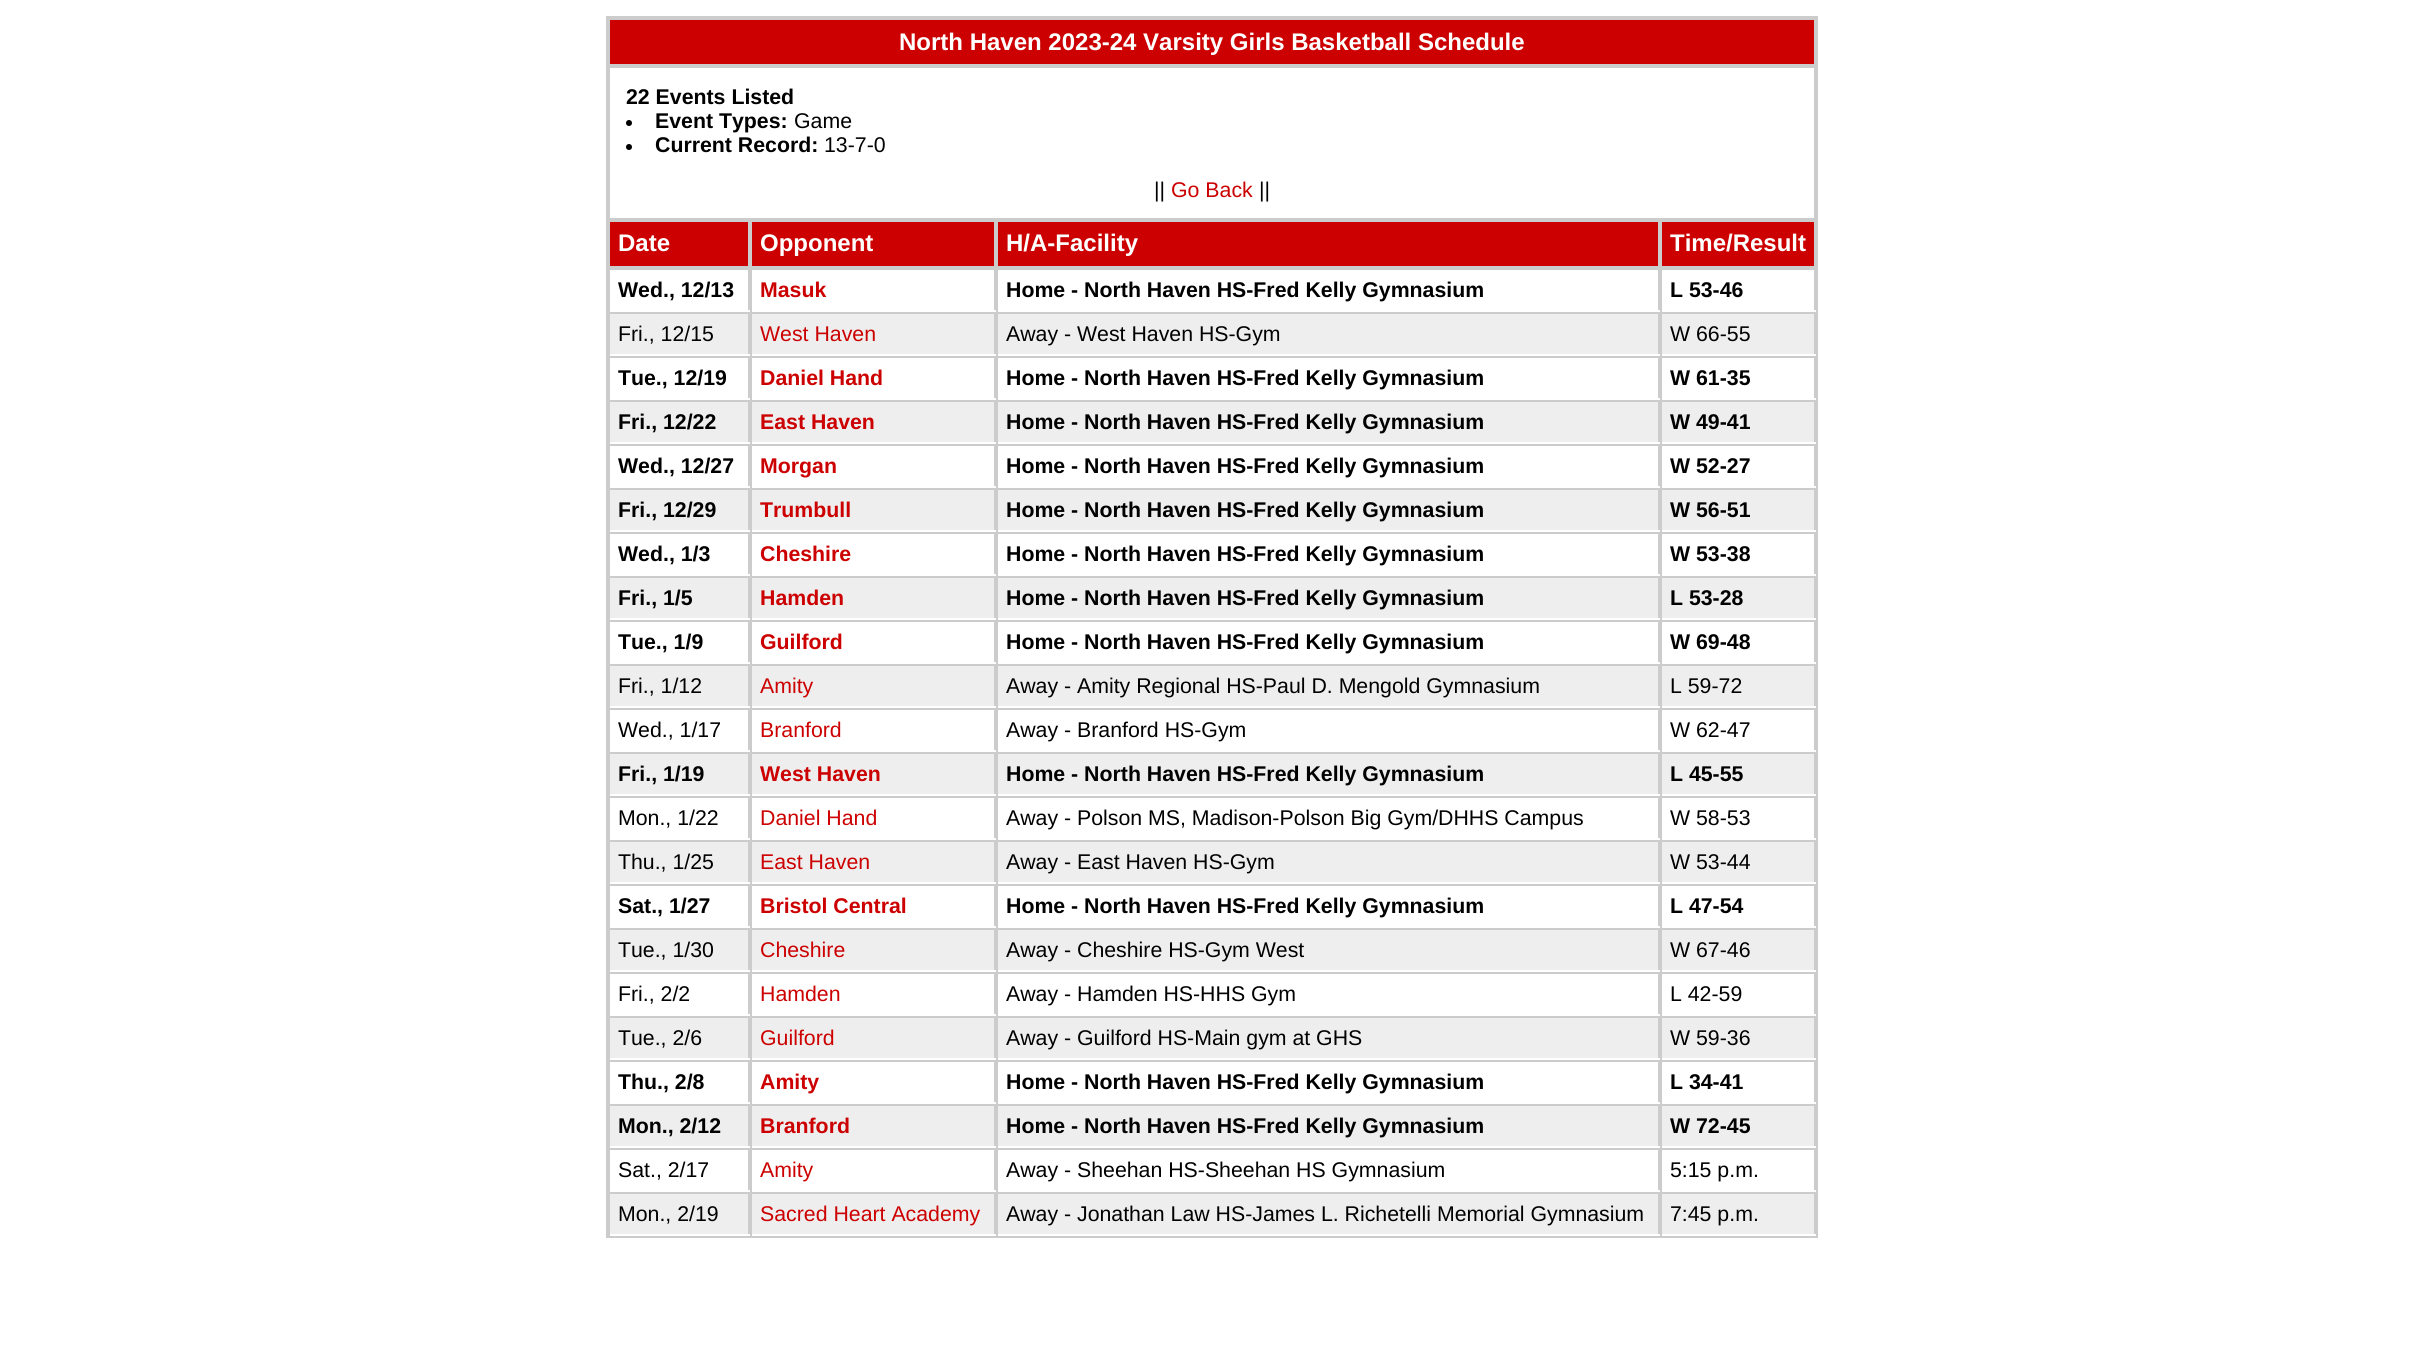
#include <cairo/cairo.h>
#include <math.h>
#include <stddef.h>

static cairo_t *cr;

static void use_color(int r, int g, int b) {
  cairo_set_source_rgb(cr, r / 255.0, g / 255.0, b / 255.0);
}

static void text(double x, double y, const char *s, const char *family, double size, int italic, int bold, int r, int g, int b) {
  cairo_select_font_face(cr, family, italic ? CAIRO_FONT_SLANT_ITALIC : CAIRO_FONT_SLANT_NORMAL,
    bold ? CAIRO_FONT_WEIGHT_BOLD : CAIRO_FONT_WEIGHT_NORMAL);
  cairo_set_font_size(cr, size);
  use_color(r, g, b);
  cairo_move_to(cr, x, y);
  cairo_show_text(cr, s);
}

static void box(double x, double y, double w, double h, int r, int g, int b) {
  use_color(r, g, b);
  cairo_rectangle(cr, x, y, w, h);
  cairo_fill(cr);
}

static void draw(void) {
  use_color(255, 255, 255);
  cairo_paint(cr);
  box(606, 16, 1212, 1222, 204, 204, 204);
  box(610, 20, 1204, 44, 204, 0, 0);
  box(610, 68, 1204, 150, 255, 255, 255);
  use_color(0, 0, 0);
  cairo_arc(cr, 629, 123, 3, 0, 2 * M_PI);
  cairo_fill(cr);
  cairo_arc(cr, 629, 147, 3, 0, 2 * M_PI);
  cairo_fill(cr);
  box(610, 222, 138, 44, 204, 0, 0);
  box(752, 222, 242, 44, 204, 0, 0);
  box(998, 222, 660, 44, 204, 0, 0);
  box(1662, 222, 152, 44, 204, 0, 0);
  box(610, 270, 1204, 40, 255, 255, 255);
  box(748, 268, 2, 44, 204, 204, 204);
  box(608, 310, 142, 2, 255, 255, 255);
  box(608, 310, 2, 2, 204, 204, 204);
  box(994, 268, 2, 44, 204, 204, 204);
  box(750, 310, 246, 2, 255, 255, 255);
  box(750, 268, 2, 44, 204, 204, 204);
  box(1658, 268, 2, 44, 204, 204, 204);
  box(996, 310, 820, 2, 255, 255, 255);
  box(996, 268, 2, 44, 204, 204, 204);
  box(1660, 268, 2, 44, 204, 204, 204);
  box(610, 314, 1204, 40, 238, 238, 238);
  box(748, 312, 2, 44, 204, 204, 204);
  box(608, 354, 142, 2, 255, 255, 255);
  box(608, 354, 2, 2, 204, 204, 204);
  box(994, 312, 2, 44, 204, 204, 204);
  box(750, 354, 246, 2, 255, 255, 255);
  box(750, 312, 2, 44, 204, 204, 204);
  box(1658, 312, 2, 44, 204, 204, 204);
  box(996, 354, 820, 2, 255, 255, 255);
  box(996, 312, 2, 44, 204, 204, 204);
  box(1660, 312, 2, 44, 204, 204, 204);
  box(610, 358, 1204, 40, 255, 255, 255);
  box(748, 356, 2, 44, 204, 204, 204);
  box(608, 398, 142, 2, 255, 255, 255);
  box(608, 398, 2, 2, 204, 204, 204);
  box(994, 356, 2, 44, 204, 204, 204);
  box(750, 398, 246, 2, 255, 255, 255);
  box(750, 356, 2, 44, 204, 204, 204);
  box(1658, 356, 2, 44, 204, 204, 204);
  box(996, 398, 820, 2, 255, 255, 255);
  box(996, 356, 2, 44, 204, 204, 204);
  box(1660, 356, 2, 44, 204, 204, 204);
  box(610, 402, 1204, 40, 238, 238, 238);
  box(748, 400, 2, 44, 204, 204, 204);
  box(608, 442, 142, 2, 255, 255, 255);
  box(608, 442, 2, 2, 204, 204, 204);
  box(994, 400, 2, 44, 204, 204, 204);
  box(750, 442, 246, 2, 255, 255, 255);
  box(750, 400, 2, 44, 204, 204, 204);
  box(1658, 400, 2, 44, 204, 204, 204);
  box(996, 442, 820, 2, 255, 255, 255);
  box(996, 400, 2, 44, 204, 204, 204);
  box(1660, 400, 2, 44, 204, 204, 204);
  box(610, 446, 1204, 40, 255, 255, 255);
  box(748, 444, 2, 44, 204, 204, 204);
  box(608, 486, 142, 2, 255, 255, 255);
  box(608, 486, 2, 2, 204, 204, 204);
  box(994, 444, 2, 44, 204, 204, 204);
  box(750, 486, 246, 2, 255, 255, 255);
  box(750, 444, 2, 44, 204, 204, 204);
  box(1658, 444, 2, 44, 204, 204, 204);
  box(996, 486, 820, 2, 255, 255, 255);
  box(996, 444, 2, 44, 204, 204, 204);
  box(1660, 444, 2, 44, 204, 204, 204);
  box(610, 490, 1204, 40, 238, 238, 238);
  box(748, 488, 2, 44, 204, 204, 204);
  box(608, 530, 142, 2, 255, 255, 255);
  box(608, 530, 2, 2, 204, 204, 204);
  box(994, 488, 2, 44, 204, 204, 204);
  box(750, 530, 246, 2, 255, 255, 255);
  box(750, 488, 2, 44, 204, 204, 204);
  box(1658, 488, 2, 44, 204, 204, 204);
  box(996, 530, 820, 2, 255, 255, 255);
  box(996, 488, 2, 44, 204, 204, 204);
  box(1660, 488, 2, 44, 204, 204, 204);
  box(610, 534, 1204, 40, 255, 255, 255);
  box(748, 532, 2, 44, 204, 204, 204);
  box(608, 574, 142, 2, 255, 255, 255);
  box(608, 574, 2, 2, 204, 204, 204);
  box(994, 532, 2, 44, 204, 204, 204);
  box(750, 574, 246, 2, 255, 255, 255);
  box(750, 532, 2, 44, 204, 204, 204);
  box(1658, 532, 2, 44, 204, 204, 204);
  box(996, 574, 820, 2, 255, 255, 255);
  box(996, 532, 2, 44, 204, 204, 204);
  box(1660, 532, 2, 44, 204, 204, 204);
  box(610, 578, 1204, 40, 238, 238, 238);
  box(748, 576, 2, 44, 204, 204, 204);
  box(608, 618, 142, 2, 255, 255, 255);
  box(608, 618, 2, 2, 204, 204, 204);
  box(994, 576, 2, 44, 204, 204, 204);
  box(750, 618, 246, 2, 255, 255, 255);
  box(750, 576, 2, 44, 204, 204, 204);
  box(1658, 576, 2, 44, 204, 204, 204);
  box(996, 618, 820, 2, 255, 255, 255);
  box(996, 576, 2, 44, 204, 204, 204);
  box(1660, 576, 2, 44, 204, 204, 204);
  box(610, 622, 1204, 40, 255, 255, 255);
  box(748, 620, 2, 44, 204, 204, 204);
  box(608, 662, 142, 2, 255, 255, 255);
  box(608, 662, 2, 2, 204, 204, 204);
  box(994, 620, 2, 44, 204, 204, 204);
  box(750, 662, 246, 2, 255, 255, 255);
  box(750, 620, 2, 44, 204, 204, 204);
  box(1658, 620, 2, 44, 204, 204, 204);
  box(996, 662, 820, 2, 255, 255, 255);
  box(996, 620, 2, 44, 204, 204, 204);
  box(1660, 620, 2, 44, 204, 204, 204);
  box(610, 666, 1204, 40, 238, 238, 238);
  box(748, 664, 2, 44, 204, 204, 204);
  box(608, 706, 142, 2, 255, 255, 255);
  box(608, 706, 2, 2, 204, 204, 204);
  box(994, 664, 2, 44, 204, 204, 204);
  box(750, 706, 246, 2, 255, 255, 255);
  box(750, 664, 2, 44, 204, 204, 204);
  box(1658, 664, 2, 44, 204, 204, 204);
  box(996, 706, 820, 2, 255, 255, 255);
  box(996, 664, 2, 44, 204, 204, 204);
  box(1660, 664, 2, 44, 204, 204, 204);
  box(610, 710, 1204, 40, 255, 255, 255);
  box(748, 708, 2, 44, 204, 204, 204);
  box(608, 750, 142, 2, 255, 255, 255);
  box(608, 750, 2, 2, 204, 204, 204);
  box(994, 708, 2, 44, 204, 204, 204);
  box(750, 750, 246, 2, 255, 255, 255);
  box(750, 708, 2, 44, 204, 204, 204);
  box(1658, 708, 2, 44, 204, 204, 204);
  box(996, 750, 820, 2, 255, 255, 255);
  box(996, 708, 2, 44, 204, 204, 204);
  box(1660, 708, 2, 44, 204, 204, 204);
  box(610, 754, 1204, 40, 238, 238, 238);
  box(748, 752, 2, 44, 204, 204, 204);
  box(608, 794, 142, 2, 255, 255, 255);
  box(608, 794, 2, 2, 204, 204, 204);
  box(994, 752, 2, 44, 204, 204, 204);
  box(750, 794, 246, 2, 255, 255, 255);
  box(750, 752, 2, 44, 204, 204, 204);
  box(1658, 752, 2, 44, 204, 204, 204);
  box(996, 794, 820, 2, 255, 255, 255);
  box(996, 752, 2, 44, 204, 204, 204);
  box(1660, 752, 2, 44, 204, 204, 204);
  box(610, 798, 1204, 40, 255, 255, 255);
  box(748, 796, 2, 44, 204, 204, 204);
  box(608, 838, 142, 2, 255, 255, 255);
  box(608, 838, 2, 2, 204, 204, 204);
  box(994, 796, 2, 44, 204, 204, 204);
  box(750, 838, 246, 2, 255, 255, 255);
  box(750, 796, 2, 44, 204, 204, 204);
  box(1658, 796, 2, 44, 204, 204, 204);
  box(996, 838, 820, 2, 255, 255, 255);
  box(996, 796, 2, 44, 204, 204, 204);
  box(1660, 796, 2, 44, 204, 204, 204);
  box(610, 842, 1204, 40, 238, 238, 238);
  box(748, 840, 2, 44, 204, 204, 204);
  box(608, 882, 142, 2, 255, 255, 255);
  box(608, 882, 2, 2, 204, 204, 204);
  box(994, 840, 2, 44, 204, 204, 204);
  box(750, 882, 246, 2, 255, 255, 255);
  box(750, 840, 2, 44, 204, 204, 204);
  box(1658, 840, 2, 44, 204, 204, 204);
  box(996, 882, 820, 2, 255, 255, 255);
  box(996, 840, 2, 44, 204, 204, 204);
  box(1660, 840, 2, 44, 204, 204, 204);
  box(610, 886, 1204, 40, 255, 255, 255);
  box(748, 884, 2, 44, 204, 204, 204);
  box(608, 926, 142, 2, 255, 255, 255);
  box(608, 926, 2, 2, 204, 204, 204);
  box(994, 884, 2, 44, 204, 204, 204);
  box(750, 926, 246, 2, 255, 255, 255);
  box(750, 884, 2, 44, 204, 204, 204);
  box(1658, 884, 2, 44, 204, 204, 204);
  box(996, 926, 820, 2, 255, 255, 255);
  box(996, 884, 2, 44, 204, 204, 204);
  box(1660, 884, 2, 44, 204, 204, 204);
  box(610, 930, 1204, 40, 238, 238, 238);
  box(748, 928, 2, 44, 204, 204, 204);
  box(608, 970, 142, 2, 255, 255, 255);
  box(608, 970, 2, 2, 204, 204, 204);
  box(994, 928, 2, 44, 204, 204, 204);
  box(750, 970, 246, 2, 255, 255, 255);
  box(750, 928, 2, 44, 204, 204, 204);
  box(1658, 928, 2, 44, 204, 204, 204);
  box(996, 970, 820, 2, 255, 255, 255);
  box(996, 928, 2, 44, 204, 204, 204);
  box(1660, 928, 2, 44, 204, 204, 204);
  box(610, 974, 1204, 40, 255, 255, 255);
  box(748, 972, 2, 44, 204, 204, 204);
  box(608, 1014, 142, 2, 255, 255, 255);
  box(608, 1014, 2, 2, 204, 204, 204);
  box(994, 972, 2, 44, 204, 204, 204);
  box(750, 1014, 246, 2, 255, 255, 255);
  box(750, 972, 2, 44, 204, 204, 204);
  box(1658, 972, 2, 44, 204, 204, 204);
  box(996, 1014, 820, 2, 255, 255, 255);
  box(996, 972, 2, 44, 204, 204, 204);
  box(1660, 972, 2, 44, 204, 204, 204);
  box(610, 1018, 1204, 40, 238, 238, 238);
  box(748, 1016, 2, 44, 204, 204, 204);
  box(608, 1058, 142, 2, 255, 255, 255);
  box(608, 1058, 2, 2, 204, 204, 204);
  box(994, 1016, 2, 44, 204, 204, 204);
  box(750, 1058, 246, 2, 255, 255, 255);
  box(750, 1016, 2, 44, 204, 204, 204);
  box(1658, 1016, 2, 44, 204, 204, 204);
  box(996, 1058, 820, 2, 255, 255, 255);
  box(996, 1016, 2, 44, 204, 204, 204);
  box(1660, 1016, 2, 44, 204, 204, 204);
  box(610, 1062, 1204, 40, 255, 255, 255);
  box(748, 1060, 2, 44, 204, 204, 204);
  box(608, 1102, 142, 2, 255, 255, 255);
  box(608, 1102, 2, 2, 204, 204, 204);
  box(994, 1060, 2, 44, 204, 204, 204);
  box(750, 1102, 246, 2, 255, 255, 255);
  box(750, 1060, 2, 44, 204, 204, 204);
  box(1658, 1060, 2, 44, 204, 204, 204);
  box(996, 1102, 820, 2, 255, 255, 255);
  box(996, 1060, 2, 44, 204, 204, 204);
  box(1660, 1060, 2, 44, 204, 204, 204);
  box(610, 1106, 1204, 40, 238, 238, 238);
  box(748, 1104, 2, 44, 204, 204, 204);
  box(608, 1146, 142, 2, 255, 255, 255);
  box(608, 1146, 2, 2, 204, 204, 204);
  box(994, 1104, 2, 44, 204, 204, 204);
  box(750, 1146, 246, 2, 255, 255, 255);
  box(750, 1104, 2, 44, 204, 204, 204);
  box(1658, 1104, 2, 44, 204, 204, 204);
  box(996, 1146, 820, 2, 255, 255, 255);
  box(996, 1104, 2, 44, 204, 204, 204);
  box(1660, 1104, 2, 44, 204, 204, 204);
  box(610, 1150, 1204, 40, 255, 255, 255);
  box(748, 1148, 2, 44, 204, 204, 204);
  box(608, 1190, 142, 2, 255, 255, 255);
  box(608, 1190, 2, 2, 204, 204, 204);
  box(994, 1148, 2, 44, 204, 204, 204);
  box(750, 1190, 246, 2, 255, 255, 255);
  box(750, 1148, 2, 44, 204, 204, 204);
  box(1658, 1148, 2, 44, 204, 204, 204);
  box(996, 1190, 820, 2, 255, 255, 255);
  box(996, 1148, 2, 44, 204, 204, 204);
  box(1660, 1148, 2, 44, 204, 204, 204);
  box(610, 1194, 1204, 40, 238, 238, 238);
  box(748, 1192, 2, 44, 204, 204, 204);
  box(608, 1234, 142, 2, 255, 255, 255);
  box(608, 1234, 2, 2, 204, 204, 204);
  box(994, 1192, 2, 44, 204, 204, 204);
  box(750, 1234, 246, 2, 255, 255, 255);
  box(750, 1192, 2, 44, 204, 204, 204);
  box(1658, 1192, 2, 44, 204, 204, 204);
  box(996, 1234, 820, 2, 255, 255, 255);
  box(996, 1192, 2, 44, 204, 204, 204);
  box(1660, 1192, 2, 44, 204, 204, 204);
  text(899, 50, "North Haven 2023-24 Varsity Girls Basketball Schedule", "Liberation Sans", 24, 0, 1, 255, 255, 255);
  text(626, 104, "22 Events Listed", "Liberation Sans", 21.3, 0, 1, 0, 0, 0);
  text(655, 128, "Event Types:", "Liberation Sans", 21.3, 0, 1, 0, 0, 0);
  text(794, 128, "Game", "Liberation Sans", 21.3, 0, 0, 0, 0, 0);
  text(655, 152, "Current Record:", "Liberation Sans", 21.3, 0, 1, 0, 0, 0);
  text(824, 152, "13-7-0", "Liberation Sans", 21.3, 0, 0, 0, 0, 0);
  text(1154, 197, "||", "Liberation Sans", 21.3, 0, 0, 0, 0, 0);
  text(1171, 197, "Go Back", "Liberation Sans", 21.3, 0, 0, 204, 0, 0);
  text(1259, 197, "||", "Liberation Sans", 21.3, 0, 0, 0, 0, 0);
  text(618, 251, "Date", "Liberation Sans", 24, 0, 1, 255, 255, 255);
  text(760, 251, "Opponent", "Liberation Sans", 24, 0, 1, 255, 255, 255);
  text(1006, 251, "H/A-Facility", "Liberation Sans", 24, 0, 1, 255, 255, 255);
  text(1670, 251, "Time/Result", "Liberation Sans", 24, 0, 1, 255, 255, 255);
  text(618, 297, "Wed., 12/13", "Liberation Sans", 21.3, 0, 1, 0, 0, 0);
  text(760, 297, "Masuk", "Liberation Sans", 21.3, 0, 1, 204, 0, 0);
  text(1006, 297, "Home - North Haven HS-Fred Kelly Gymnasium", "Liberation Sans", 21.3, 0, 1, 0, 0, 0);
  text(1670, 297, "L 53-46", "Liberation Sans", 21.3, 0, 1, 0, 0, 0);
  text(618, 341, "Fri., 12/15", "Liberation Sans", 21.3, 0, 0, 0, 0, 0);
  text(760, 341, "West Haven", "Liberation Sans", 21.3, 0, 0, 204, 0, 0);
  text(1006, 341, "Away - West Haven HS-Gym", "Liberation Sans", 21.3, 0, 0, 0, 0, 0);
  text(1670, 341, "W 66-55", "Liberation Sans", 21.3, 0, 0, 0, 0, 0);
  text(618, 385, "Tue., 12/19", "Liberation Sans", 21.3, 0, 1, 0, 0, 0);
  text(760, 385, "Daniel Hand", "Liberation Sans", 21.3, 0, 1, 204, 0, 0);
  text(1006, 385, "Home - North Haven HS-Fred Kelly Gymnasium", "Liberation Sans", 21.3, 0, 1, 0, 0, 0);
  text(1670, 385, "W 61-35", "Liberation Sans", 21.3, 0, 1, 0, 0, 0);
  text(618, 429, "Fri., 12/22", "Liberation Sans", 21.3, 0, 1, 0, 0, 0);
  text(760, 429, "East Haven", "Liberation Sans", 21.3, 0, 1, 204, 0, 0);
  text(1006, 429, "Home - North Haven HS-Fred Kelly Gymnasium", "Liberation Sans", 21.3, 0, 1, 0, 0, 0);
  text(1670, 429, "W 49-41", "Liberation Sans", 21.3, 0, 1, 0, 0, 0);
  text(618, 473, "Wed., 12/27", "Liberation Sans", 21.3, 0, 1, 0, 0, 0);
  text(760, 473, "Morgan", "Liberation Sans", 21.3, 0, 1, 204, 0, 0);
  text(1006, 473, "Home - North Haven HS-Fred Kelly Gymnasium", "Liberation Sans", 21.3, 0, 1, 0, 0, 0);
  text(1670, 473, "W 52-27", "Liberation Sans", 21.3, 0, 1, 0, 0, 0);
  text(618, 517, "Fri., 12/29", "Liberation Sans", 21.3, 0, 1, 0, 0, 0);
  text(760, 517, "Trumbull", "Liberation Sans", 21.3, 0, 1, 204, 0, 0);
  text(1006, 517, "Home - North Haven HS-Fred Kelly Gymnasium", "Liberation Sans", 21.3, 0, 1, 0, 0, 0);
  text(1670, 517, "W 56-51", "Liberation Sans", 21.3, 0, 1, 0, 0, 0);
  text(618, 561, "Wed., 1/3", "Liberation Sans", 21.3, 0, 1, 0, 0, 0);
  text(760, 561, "Cheshire", "Liberation Sans", 21.3, 0, 1, 204, 0, 0);
  text(1006, 561, "Home - North Haven HS-Fred Kelly Gymnasium", "Liberation Sans", 21.3, 0, 1, 0, 0, 0);
  text(1670, 561, "W 53-38", "Liberation Sans", 21.3, 0, 1, 0, 0, 0);
  text(618, 605, "Fri., 1/5", "Liberation Sans", 21.3, 0, 1, 0, 0, 0);
  text(760, 605, "Hamden", "Liberation Sans", 21.3, 0, 1, 204, 0, 0);
  text(1006, 605, "Home - North Haven HS-Fred Kelly Gymnasium", "Liberation Sans", 21.3, 0, 1, 0, 0, 0);
  text(1670, 605, "L 53-28", "Liberation Sans", 21.3, 0, 1, 0, 0, 0);
  text(618, 649, "Tue., 1/9", "Liberation Sans", 21.3, 0, 1, 0, 0, 0);
  text(760, 649, "Guilford", "Liberation Sans", 21.3, 0, 1, 204, 0, 0);
  text(1006, 649, "Home - North Haven HS-Fred Kelly Gymnasium", "Liberation Sans", 21.3, 0, 1, 0, 0, 0);
  text(1670, 649, "W 69-48", "Liberation Sans", 21.3, 0, 1, 0, 0, 0);
  text(618, 693, "Fri., 1/12", "Liberation Sans", 21.3, 0, 0, 0, 0, 0);
  text(760, 693, "Amity", "Liberation Sans", 21.3, 0, 0, 204, 0, 0);
  text(1006, 693, "Away - Amity Regional HS-Paul D. Mengold Gymnasium", "Liberation Sans", 21.3, 0, 0, 0, 0, 0);
  text(1670, 693, "L 59-72", "Liberation Sans", 21.3, 0, 0, 0, 0, 0);
  text(618, 737, "Wed., 1/17", "Liberation Sans", 21.3, 0, 0, 0, 0, 0);
  text(760, 737, "Branford", "Liberation Sans", 21.3, 0, 0, 204, 0, 0);
  text(1006, 737, "Away - Branford HS-Gym", "Liberation Sans", 21.3, 0, 0, 0, 0, 0);
  text(1670, 737, "W 62-47", "Liberation Sans", 21.3, 0, 0, 0, 0, 0);
  text(618, 781, "Fri., 1/19", "Liberation Sans", 21.3, 0, 1, 0, 0, 0);
  text(760, 781, "West Haven", "Liberation Sans", 21.3, 0, 1, 204, 0, 0);
  text(1006, 781, "Home - North Haven HS-Fred Kelly Gymnasium", "Liberation Sans", 21.3, 0, 1, 0, 0, 0);
  text(1670, 781, "L 45-55", "Liberation Sans", 21.3, 0, 1, 0, 0, 0);
  text(618, 825, "Mon., 1/22", "Liberation Sans", 21.3, 0, 0, 0, 0, 0);
  text(760, 825, "Daniel Hand", "Liberation Sans", 21.3, 0, 0, 204, 0, 0);
  text(1006, 825, "Away - Polson MS, Madison-Polson Big Gym/DHHS Campus", "Liberation Sans", 21.3, 0, 0, 0, 0, 0);
  text(1670, 825, "W 58-53", "Liberation Sans", 21.3, 0, 0, 0, 0, 0);
  text(618, 869, "Thu., 1/25", "Liberation Sans", 21.3, 0, 0, 0, 0, 0);
  text(760, 869, "East Haven", "Liberation Sans", 21.3, 0, 0, 204, 0, 0);
  text(1006, 869, "Away - East Haven HS-Gym", "Liberation Sans", 21.3, 0, 0, 0, 0, 0);
  text(1670, 869, "W 53-44", "Liberation Sans", 21.3, 0, 0, 0, 0, 0);
  text(618, 913, "Sat., 1/27", "Liberation Sans", 21.3, 0, 1, 0, 0, 0);
  text(760, 913, "Bristol Central", "Liberation Sans", 21.3, 0, 1, 204, 0, 0);
  text(1006, 913, "Home - North Haven HS-Fred Kelly Gymnasium", "Liberation Sans", 21.3, 0, 1, 0, 0, 0);
  text(1670, 913, "L 47-54", "Liberation Sans", 21.3, 0, 1, 0, 0, 0);
  text(618, 957, "Tue., 1/30", "Liberation Sans", 21.3, 0, 0, 0, 0, 0);
  text(760, 957, "Cheshire", "Liberation Sans", 21.3, 0, 0, 204, 0, 0);
  text(1006, 957, "Away - Cheshire HS-Gym West", "Liberation Sans", 21.3, 0, 0, 0, 0, 0);
  text(1670, 957, "W 67-46", "Liberation Sans", 21.3, 0, 0, 0, 0, 0);
  text(618, 1001, "Fri., 2/2", "Liberation Sans", 21.3, 0, 0, 0, 0, 0);
  text(760, 1001, "Hamden", "Liberation Sans", 21.3, 0, 0, 204, 0, 0);
  text(1006, 1001, "Away - Hamden HS-HHS Gym", "Liberation Sans", 21.3, 0, 0, 0, 0, 0);
  text(1670, 1001, "L 42-59", "Liberation Sans", 21.3, 0, 0, 0, 0, 0);
  text(618, 1045, "Tue., 2/6", "Liberation Sans", 21.3, 0, 0, 0, 0, 0);
  text(760, 1045, "Guilford", "Liberation Sans", 21.3, 0, 0, 204, 0, 0);
  text(1006, 1045, "Away - Guilford HS-Main gym at GHS", "Liberation Sans", 21.3, 0, 0, 0, 0, 0);
  text(1670, 1045, "W 59-36", "Liberation Sans", 21.3, 0, 0, 0, 0, 0);
  text(618, 1089, "Thu., 2/8", "Liberation Sans", 21.3, 0, 1, 0, 0, 0);
  text(760, 1089, "Amity", "Liberation Sans", 21.3, 0, 1, 204, 0, 0);
  text(1006, 1089, "Home - North Haven HS-Fred Kelly Gymnasium", "Liberation Sans", 21.3, 0, 1, 0, 0, 0);
  text(1670, 1089, "L 34-41", "Liberation Sans", 21.3, 0, 1, 0, 0, 0);
  text(618, 1133, "Mon., 2/12", "Liberation Sans", 21.3, 0, 1, 0, 0, 0);
  text(760, 1133, "Branford", "Liberation Sans", 21.3, 0, 1, 204, 0, 0);
  text(1006, 1133, "Home - North Haven HS-Fred Kelly Gymnasium", "Liberation Sans", 21.3, 0, 1, 0, 0, 0);
  text(1670, 1133, "W 72-45", "Liberation Sans", 21.3, 0, 1, 0, 0, 0);
  text(618, 1177, "Sat., 2/17", "Liberation Sans", 21.3, 0, 0, 0, 0, 0);
  text(760, 1177, "Amity", "Liberation Sans", 21.3, 0, 0, 204, 0, 0);
  text(1006, 1177, "Away - Sheehan HS-Sheehan HS Gymnasium", "Liberation Sans", 21.3, 0, 0, 0, 0, 0);
  text(1670, 1177, "5:15 p.m.", "Liberation Sans", 21.3, 0, 0, 0, 0, 0);
  text(618, 1221, "Mon., 2/19", "Liberation Sans", 21.3, 0, 0, 0, 0, 0);
  text(760, 1221, "Sacred Heart Academy", "Liberation Sans", 21.3, 0, 0, 204, 0, 0);
  text(1006, 1221, "Away - Jonathan Law HS-James L. Richetelli Memorial Gymnasium", "Liberation Sans", 21.3, 0, 0, 0, 0, 0);
  text(1670, 1221, "7:45 p.m.", "Liberation Sans", 21.3, 0, 0, 0, 0, 0);
}

int main(void) {
  cairo_surface_t *surface = cairo_image_surface_create(CAIRO_FORMAT_RGB24, 2424, 1352);
  cr = cairo_create(surface);
  cairo_font_options_t *options = cairo_font_options_create();
  cairo_font_options_set_hint_metrics(options, CAIRO_HINT_METRICS_OFF);
  cairo_font_options_set_hint_style(options, CAIRO_HINT_STYLE_NONE);
  cairo_set_font_options(cr, options);
  cairo_set_miter_limit(cr, 4);
  draw();
  cairo_surface_write_to_png(surface, "out.png");
  cairo_font_options_destroy(options);
  cairo_destroy(cr);
  cairo_surface_destroy(surface);
  return 0;
}
